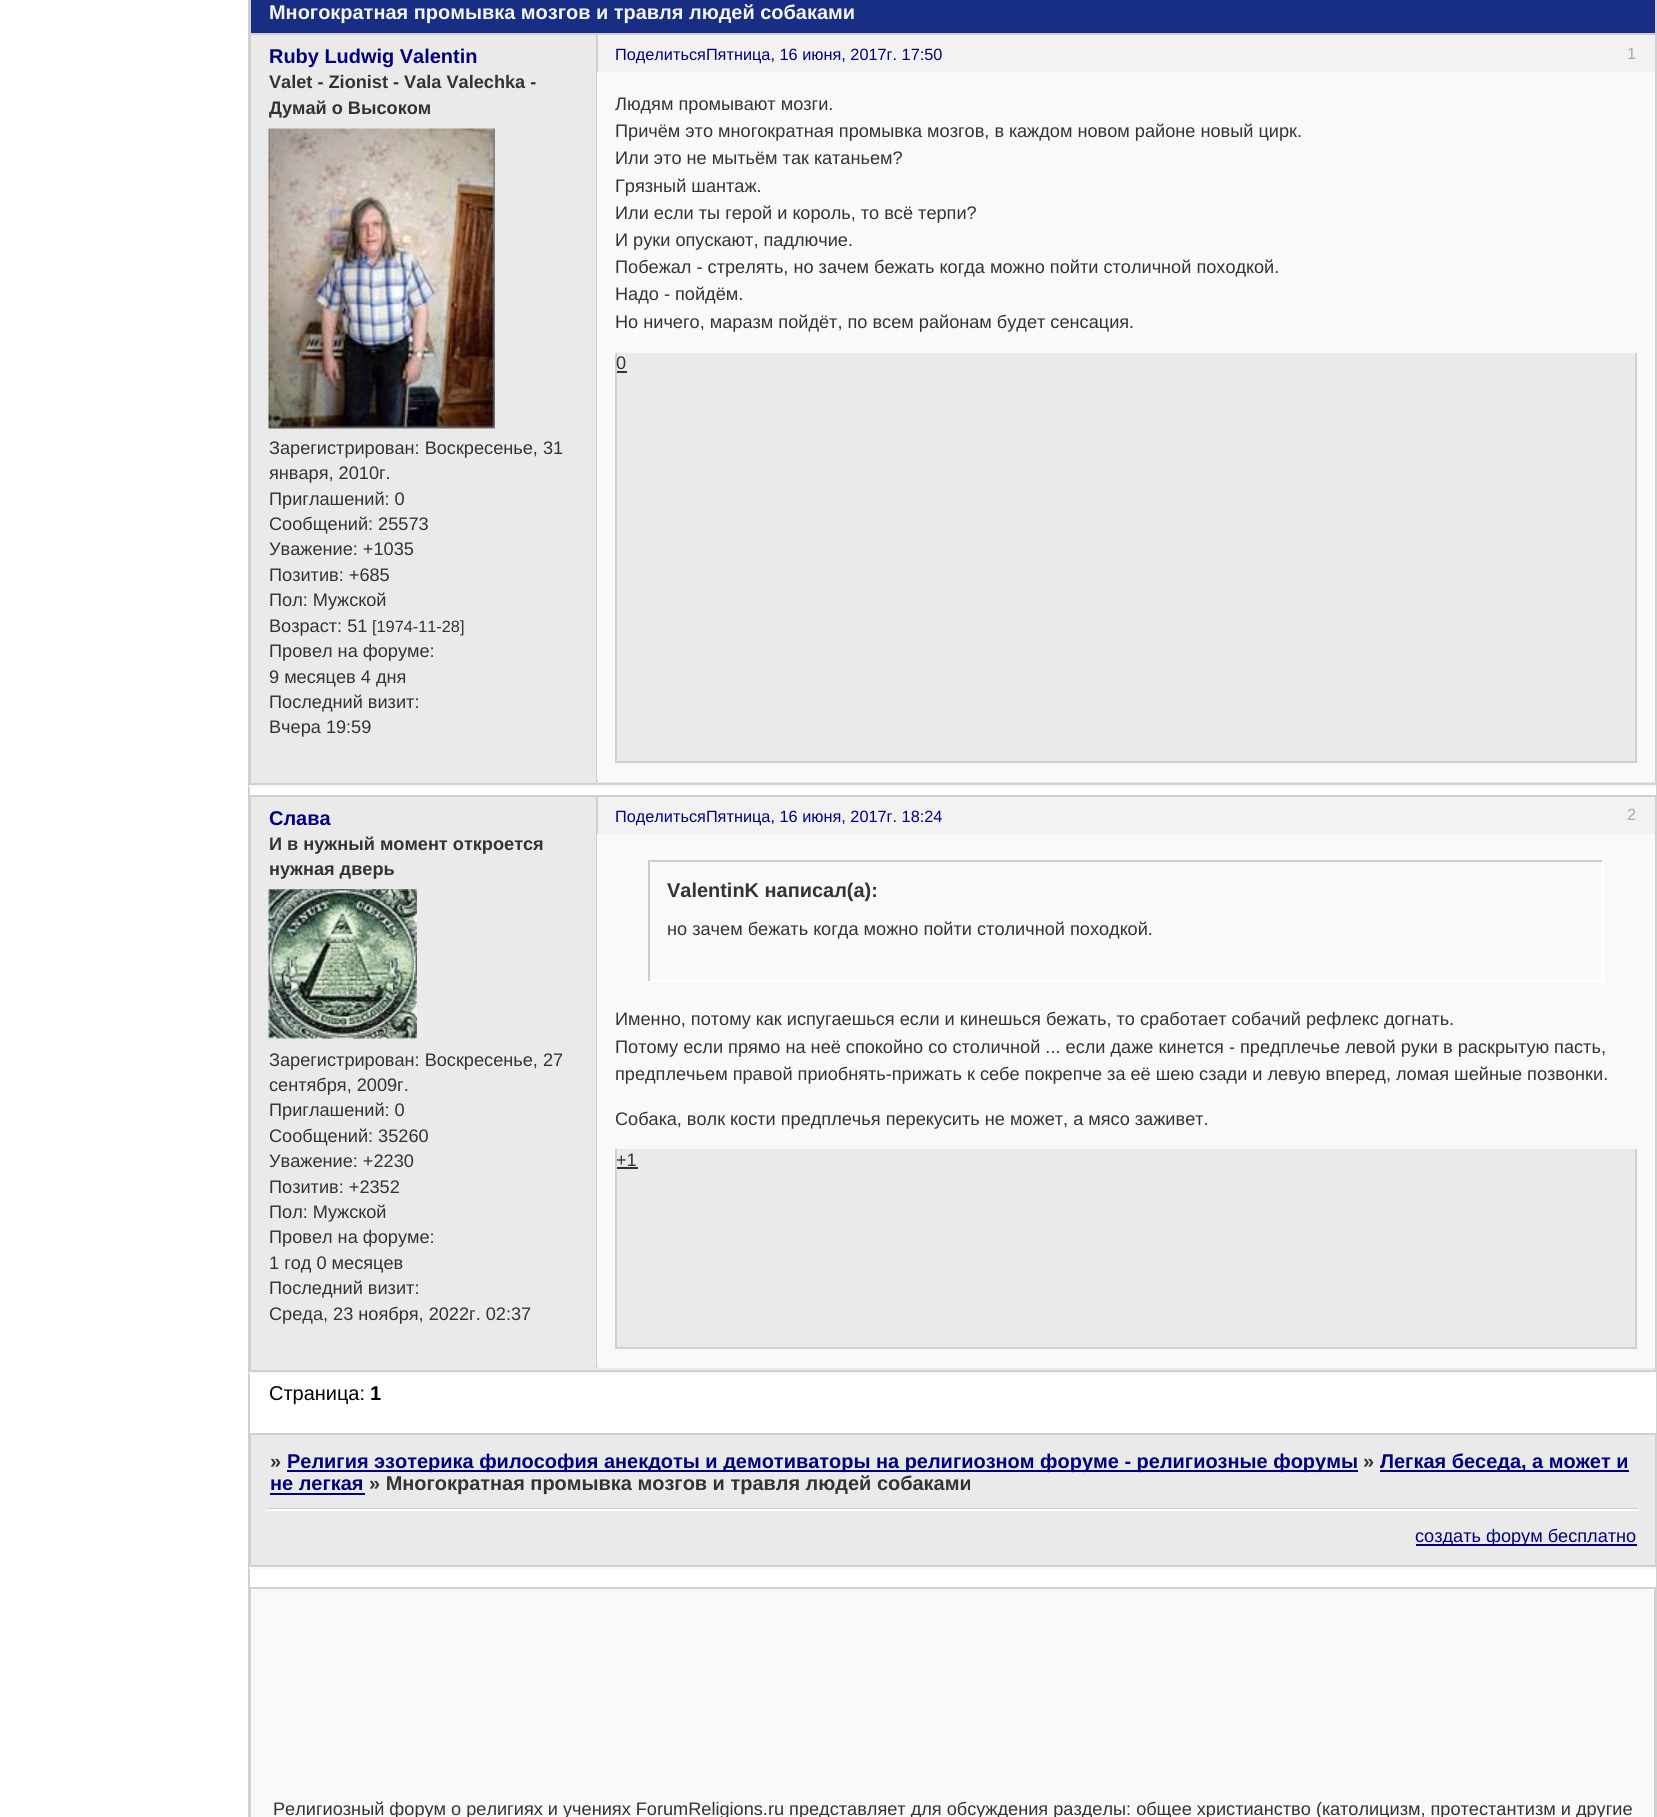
#include <cairo/cairo.h>
#include <math.h>
#include <stddef.h>

static cairo_t *cr;

static void use_color(int r, int g, int b) {
  cairo_set_source_rgb(cr, r / 255.0, g / 255.0, b / 255.0);
}

static void text(double x, double y, const char *s, const char *family, double size, int italic, int bold, int r, int g, int b) {
  cairo_select_font_face(cr, family, italic ? CAIRO_FONT_SLANT_ITALIC : CAIRO_FONT_SLANT_NORMAL,
    bold ? CAIRO_FONT_WEIGHT_BOLD : CAIRO_FONT_WEIGHT_NORMAL);
  cairo_set_font_size(cr, size);
  use_color(r, g, b);
  cairo_move_to(cr, x, y);
  cairo_show_text(cr, s);
}

static void box(double x, double y, double w, double h, int r, int g, int b) {
  use_color(r, g, b);
  cairo_rectangle(cr, x, y, w, h);
  cairo_fill(cr);
}

static void picture(const char *path, double x, double y, double w, double h) {
  cairo_surface_t *image = cairo_image_surface_create_from_png(path);
  cairo_save(cr);
  cairo_set_source_surface(cr, image, x, y);
  cairo_rectangle(cr, x, y, w, h);
  cairo_fill(cr);
  cairo_restore(cr);
  cairo_surface_destroy(image);
}

static void draw(void) {
  use_color(255, 255, 255);
  cairo_paint(cr);
  cairo_rectangle(cr, 249, -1, 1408, 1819);
  use_color(208, 208, 208);
  cairo_stroke(cr);
  box(251, 0, 1404, 33, 24, 46, 133);
  box(1655, 0, 1, 33, 208, 208, 208);
  box(250, 0, 1, 33, 208, 208, 208);
  box(249, 785, 1407, 3, 248, 248, 248);
  box(251, 35, 345, 37, 234, 234, 234);
  box(249, 33, 1407, 2, 208, 208, 208);
  box(1655, 33, 1, 752, 208, 208, 208);
  box(250, 33, 1, 41, 208, 208, 208);
  box(598, 35, 1057, 37, 242, 242, 242);
  box(596, 35, 2, 39, 208, 208, 208);
  box(251, 72, 1404, 711, 234, 234, 234);
  box(249, 783, 1407, 2, 208, 208, 208);
  box(250, 72, 1, 713, 208, 208, 208);
  picture("img_01.png", 268, 128, 227, 301);
  box(598, 780, 1057, 2, 249, 249, 249);
  box(596, 72, 2, 710, 208, 208, 208);
  box(597, 72, 1058, 708, 249, 249, 249);
  box(617, 353, 1018, 408, 234, 234, 234);
  box(1635, 353, 2, 409, 208, 208, 208);
  box(615, 761, 1022, 2, 208, 208, 208);
  box(615, 353, 2, 409, 208, 208, 208);
  box(617, 371, 10, 2, 51, 51, 51);
  box(249, 1372, 1407, 2, 248, 248, 248);
  box(251, 797, 345, 37, 234, 234, 234);
  box(249, 795, 1407, 2, 208, 208, 208);
  box(1655, 795, 1, 576, 208, 208, 208);
  box(250, 795, 1, 41, 208, 208, 208);
  box(598, 797, 1057, 37, 242, 242, 242);
  box(596, 797, 2, 39, 208, 208, 208);
  box(251, 834, 1404, 536, 234, 234, 234);
  box(249, 1370, 1407, 2, 208, 208, 208);
  box(250, 834, 1, 537, 208, 208, 208);
  picture("img_02.png", 268, 889, 149, 150);
  box(598, 1367, 1057, 1, 249, 249, 249);
  box(596, 834, 2, 534, 208, 208, 208);
  box(597, 834, 1058, 533, 249, 249, 249);
  box(648, 860, 956, 2, 204, 204, 204);
  box(1602, 860, 2, 121, 255, 255, 255);
  box(648, 980, 956, 2, 255, 255, 255);
  box(648, 860, 2, 121, 204, 204, 204);
  box(617, 1149, 1018, 198, 234, 234, 234);
  box(1635, 1149, 2, 200, 208, 208, 208);
  box(615, 1347, 1022, 2, 208, 208, 208);
  box(615, 1149, 2, 200, 208, 208, 208);
  box(617, 1167, 21, 2, 51, 51, 51);
  box(249, 1433, 1407, 2, 208, 208, 208);
  box(1655, 1508, 1, 58, 208, 208, 208);
  box(1655, 1433, 1, 78, 208, 208, 208);
  box(249, 1565, 1407, 2, 208, 208, 208);
  box(250, 1508, 1, 58, 208, 208, 208);
  box(250, 1433, 1, 78, 208, 208, 208);
  box(251, 1435, 1404, 130, 234, 234, 234);
  box(287, 1470, 1071, 2, 0, 0, 128);
  box(1380, 1470, 249, 2, 0, 0, 128);
  box(270, 1493, 95, 2, 0, 0, 128);
  box(267, 1508, 1371, 1, 204, 204, 204);
  box(267, 1509, 1371, 2, 255, 255, 255);
  box(249, 1567, 1407, 2, 248, 248, 248);
  box(1416, 1544, 221, 2, 0, 0, 128);
  use_color(249, 249, 249);
  cairo_rectangle(cr, 250, 1588, 1405, 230);
  cairo_fill_preserve(cr);
  use_color(208, 208, 208);
  cairo_stroke(cr);
  text(269, 19, "Многократная промывка мозгов и травля людей собаками", "Liberation Sans", 19.95, 0, 1, 246, 246, 246);
  text(615, 60, "ПоделитьсяПятница, 16 июня, 2017г. 17:50", "Liberation Sans", 16.3, 0, 0, 0, 0, 128);
  text(1627, 59, "1", "Liberation Sans", 16.3, 0, 0, 169, 169, 169);
  text(269, 63, "Ruby Ludwig Valentin", "Liberation Sans", 19.95, 0, 1, 0, 0, 128);
  text(269, 88, "Valet - Zionist - Vala Valechka -", "Liberation Sans", 18.15, 0, 1, 51, 51, 51);
  text(269, 114, "Думай о Высоком", "Liberation Sans", 18.15, 0, 1, 51, 51, 51);
  text(269, 454, "Зарегистрирован: Воскресенье, 31", "Liberation Sans", 18.15, 0, 0, 51, 51, 51);
  text(269, 479, "января, 2010г.", "Liberation Sans", 18.15, 0, 0, 51, 51, 51);
  text(269, 505, "Приглашений: 0", "Liberation Sans", 18.15, 0, 0, 51, 51, 51);
  text(269, 530, "Сообщений: 25573", "Liberation Sans", 18.15, 0, 0, 51, 51, 51);
  text(269, 555, "Уважение: +1035", "Liberation Sans", 18.15, 0, 0, 51, 51, 51);
  text(269, 581, "Позитив: +685", "Liberation Sans", 18.15, 0, 0, 51, 51, 51);
  text(269, 606, "Пол: Мужской", "Liberation Sans", 18.15, 0, 0, 51, 51, 51);
  text(269, 632, "Возраст: 51", "Liberation Sans", 18.15, 0, 0, 51, 51, 51);
  text(372, 632, "[1974-11-28]", "Liberation Sans", 16.3, 0, 0, 51, 51, 51);
  text(269, 657, "Провел на форуме:", "Liberation Sans", 18.15, 0, 0, 51, 51, 51);
  text(269, 683, "9 месяцев 4 дня", "Liberation Sans", 18.15, 0, 0, 51, 51, 51);
  text(269, 708, "Последний визит:", "Liberation Sans", 18.15, 0, 0, 51, 51, 51);
  text(269, 733, "Вчера 19:59", "Liberation Sans", 18.15, 0, 0, 51, 51, 51);
  text(615, 110, "Людям промывают мозги.", "Liberation Sans", 18.15, 0, 0, 51, 51, 51);
  text(615, 137, "Причём это многократная промывка мозгов, в каждом новом районе новый цирк.", "Liberation Sans", 18.15, 0, 0, 51, 51, 51);
  text(615, 164, "Или это не мытьём так катаньем?", "Liberation Sans", 18.15, 0, 0, 51, 51, 51);
  text(615, 192, "Грязный шантаж.", "Liberation Sans", 18.15, 0, 0, 51, 51, 51);
  text(615, 219, "Или если ты герой и король, то всё терпи?", "Liberation Sans", 18.15, 0, 0, 51, 51, 51);
  text(615, 246, "И руки опускают, падлючие.", "Liberation Sans", 18.15, 0, 0, 51, 51, 51);
  text(615, 273, "Побежал - стрелять, но зачем бежать когда можно пойти столичной походкой.", "Liberation Sans", 18.15, 0, 0, 51, 51, 51);
  text(615, 300, "Надо - пойдём.", "Liberation Sans", 18.15, 0, 0, 51, 51, 51);
  text(615, 328, "Но ничего, маразм пойдёт, по всем районам будет сенсация.", "Liberation Sans", 18.15, 0, 0, 51, 51, 51);
  text(616, 369, "0", "Liberation Sans", 18.15, 0, 0, 51, 51, 51);
  text(615, 822, "ПоделитьсяПятница, 16 июня, 2017г. 18:24", "Liberation Sans", 16.3, 0, 0, 0, 0, 128);
  text(1627, 820, "2", "Liberation Sans", 16.3, 0, 0, 169, 169, 169);
  text(269, 825, "Слава", "Liberation Sans", 19.95, 0, 1, 0, 0, 128);
  text(269, 850, "И в нужный момент откроется", "Liberation Sans", 18.15, 0, 1, 51, 51, 51);
  text(269, 875, "нужная дверь", "Liberation Sans", 18.15, 0, 1, 51, 51, 51);
  text(269, 1066, "Зарегистрирован: Воскресенье, 27", "Liberation Sans", 18.15, 0, 0, 51, 51, 51);
  text(269, 1091, "сентября, 2009г.", "Liberation Sans", 18.15, 0, 0, 51, 51, 51);
  text(269, 1116, "Приглашений: 0", "Liberation Sans", 18.15, 0, 0, 51, 51, 51);
  text(269, 1142, "Сообщений: 35260", "Liberation Sans", 18.15, 0, 0, 51, 51, 51);
  text(269, 1167, "Уважение: +2230", "Liberation Sans", 18.15, 0, 0, 51, 51, 51);
  text(269, 1193, "Позитив: +2352", "Liberation Sans", 18.15, 0, 0, 51, 51, 51);
  text(269, 1218, "Пол: Мужской", "Liberation Sans", 18.15, 0, 0, 51, 51, 51);
  text(269, 1243, "Провел на форуме:", "Liberation Sans", 18.15, 0, 0, 51, 51, 51);
  text(269, 1269, "1 год 0 месяцев", "Liberation Sans", 18.15, 0, 0, 51, 51, 51);
  text(269, 1294, "Последний визит:", "Liberation Sans", 18.15, 0, 0, 51, 51, 51);
  text(269, 1320, "Среда, 23 ноября, 2022г. 02:37", "Liberation Sans", 18.15, 0, 0, 51, 51, 51);
  text(667, 897, "ValentinK написал(а):", "Liberation Sans", 19.95, 0, 1, 51, 51, 51);
  text(667, 935, "но зачем бежать когда можно пойти столичной походкой.", "Liberation Sans", 18.15, 0, 0, 51, 51, 51);
  text(615, 1025, "Именно, потому как испугаешься если и кинешься бежать, то сработает собачий рефлекс догнать.", "Liberation Sans", 18.15, 0, 0, 51, 51, 51);
  text(615, 1053, "Потому если прямо на неё спокойно со столичной ... если даже кинется - предплечье левой руки в раскрытую пасть,", "Liberation Sans", 18.15, 0, 0, 51, 51, 51);
  text(615, 1080, "предплечьем правой приобнять-прижать к себе покрепче за её шею сзади и левую вперед, ломая шейные позвонки.", "Liberation Sans", 18.15, 0, 0, 51, 51, 51);
  text(615, 1125, "Собака, волк кости предплечья перекусить не может, а мясо заживет.", "Liberation Sans", 18.15, 0, 0, 51, 51, 51);
  text(616, 1166, "+1", "Liberation Sans", 18.15, 0, 0, 51, 51, 51);
  text(269, 1400, "Страница:", "Liberation Sans", 19.95, 0, 0, 0, 0, 0);
  text(370, 1400, "1", "Liberation Sans", 19.95, 0, 1, 0, 0, 0);
  text(270, 1468, "»", "Liberation Sans", 19.95, 0, 1, 51, 51, 51);
  text(287, 1468, "Религия эзотерика философия анекдоты и демотиваторы на религиозном форуме - религиозные форумы", "Liberation Sans", 19.95, 0, 1, 0, 0, 128);
  text(1363, 1468, "»", "Liberation Sans", 19.95, 0, 1, 51, 51, 51);
  text(1380, 1468, "Легкая беседа, а может и", "Liberation Sans", 19.95, 0, 1, 0, 0, 128);
  text(270, 1490, "не легкая", "Liberation Sans", 19.95, 0, 1, 0, 0, 128);
  text(369, 1490, "» Многократная промывка мозгов и травля людей собаками", "Liberation Sans", 19.95, 0, 1, 51, 51, 51);
  text(1415, 1542, "создать форум бесплатно", "Liberation Sans", 18.15, 0, 0, 0, 0, 128);
  text(273, 1815, "Религиозный форум о религиях и учениях ForumReligions.ru представляет для обсуждения разделы: общее христианство (католицизм, протестантизм и другие", "Liberation Sans", 18.15, 0, 0, 51, 51, 51);
}

int main(void) {
  cairo_surface_t *surface = cairo_image_surface_create(CAIRO_FORMAT_RGB24, 1657, 1817);
  cr = cairo_create(surface);
  cairo_font_options_t *options = cairo_font_options_create();
  cairo_font_options_set_hint_metrics(options, CAIRO_HINT_METRICS_OFF);
  cairo_font_options_set_hint_style(options, CAIRO_HINT_STYLE_NONE);
  cairo_set_font_options(cr, options);
  cairo_set_miter_limit(cr, 4);
  draw();
  cairo_surface_write_to_png(surface, "out.png");
  cairo_font_options_destroy(options);
  cairo_destroy(cr);
  cairo_surface_destroy(surface);
  return 0;
}
